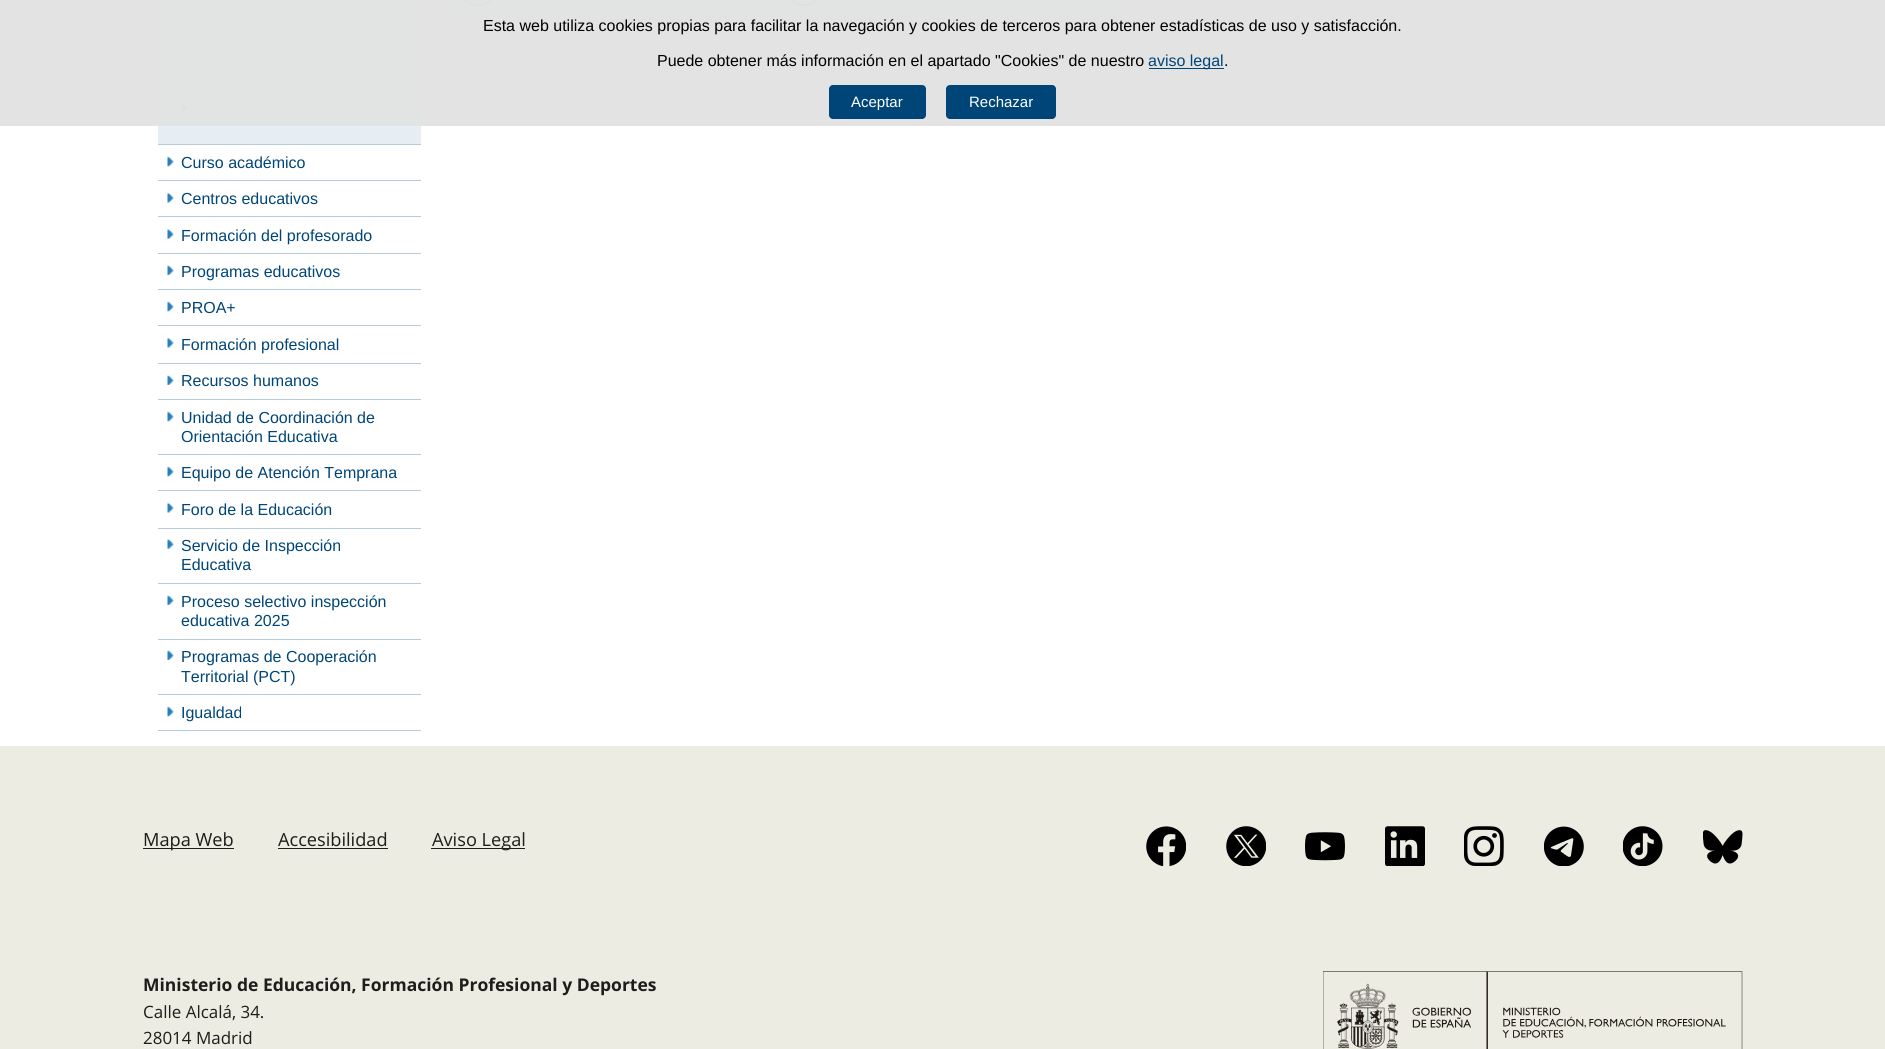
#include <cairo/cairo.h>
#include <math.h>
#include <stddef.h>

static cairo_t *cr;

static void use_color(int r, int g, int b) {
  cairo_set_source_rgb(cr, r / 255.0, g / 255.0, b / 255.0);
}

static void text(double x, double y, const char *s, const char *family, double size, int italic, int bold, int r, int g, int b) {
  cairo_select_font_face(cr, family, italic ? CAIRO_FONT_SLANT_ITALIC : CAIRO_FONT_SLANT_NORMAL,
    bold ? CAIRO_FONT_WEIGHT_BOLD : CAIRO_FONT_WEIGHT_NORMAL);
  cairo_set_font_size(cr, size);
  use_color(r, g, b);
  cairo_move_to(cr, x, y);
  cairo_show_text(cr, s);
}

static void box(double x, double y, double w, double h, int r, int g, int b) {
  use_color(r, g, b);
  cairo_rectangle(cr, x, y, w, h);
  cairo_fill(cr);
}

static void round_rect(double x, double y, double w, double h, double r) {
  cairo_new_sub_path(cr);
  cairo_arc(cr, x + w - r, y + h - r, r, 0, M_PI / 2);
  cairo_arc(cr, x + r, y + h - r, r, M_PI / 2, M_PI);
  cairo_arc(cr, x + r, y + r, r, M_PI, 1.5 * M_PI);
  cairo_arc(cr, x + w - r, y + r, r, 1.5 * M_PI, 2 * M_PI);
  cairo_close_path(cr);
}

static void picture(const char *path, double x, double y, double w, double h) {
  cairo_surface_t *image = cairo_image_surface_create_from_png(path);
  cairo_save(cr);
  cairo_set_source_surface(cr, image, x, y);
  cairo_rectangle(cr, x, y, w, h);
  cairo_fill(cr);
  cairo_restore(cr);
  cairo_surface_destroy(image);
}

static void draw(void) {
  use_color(255, 255, 255);
  cairo_paint(cr);
  use_color(228, 238, 249);
  round_rect(450.5, -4.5, 310, 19, 3.5);
  cairo_fill_preserve(cr);
  use_color(197, 211, 226);
  cairo_set_line_width(cr, 1);
  cairo_stroke(cr);
  picture("img_01.png", 458, 0, 41, 7);
  use_color(228, 238, 249);
  round_rect(775.5, -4.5, 344, 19, 3.5);
  cairo_fill_preserve(cr);
  use_color(197, 211, 226);
  cairo_stroke(cr);
  picture("img_02.png", 783, 0, 41, 7);
  box(158, 0, 263, 88, 230, 237, 243);
  box(158, 88, 263, 1, 181, 202, 218);
  box(158, 89, 263, 55, 230, 237, 243);
  picture("img_03.png", 181, 102, 7, 11);
  cairo_set_source_rgba(cr, 0.886, 0.886, 0.886, 0.97);
  cairo_rectangle(cr, 0, 0, 1885, 126);
  cairo_fill(cr);
  box(1149, 68, 75, 1, 0, 69, 120);
  round_rect(829, 85, 97, 34, 4);
  cairo_fill(cr);
  round_rect(946, 85, 110, 34, 4);
  cairo_fill(cr);
  box(158, 144, 263, 1, 181, 202, 218);
  picture("img_04.png", 167, 156, 7, 11);
  box(158, 180, 263, 1, 181, 202, 218);
  picture("img_05.png", 167, 192, 7, 11);
  box(158, 216, 263, 1, 181, 202, 218);
  picture("img_06.png", 167, 228, 7, 11);
  box(158, 253, 263, 1, 181, 202, 218);
  picture("img_07.png", 167, 265, 7, 10);
  box(158, 289, 263, 1, 181, 202, 218);
  picture("img_04.png", 167, 301, 7, 11);
  box(158, 325, 263, 1, 181, 202, 218);
  picture("img_05.png", 167, 337, 7, 11);
  box(158, 363, 263, 1, 181, 202, 218);
  picture("img_07.png", 167, 375, 7, 10);
  box(158, 399, 263, 1, 181, 202, 218);
  picture("img_04.png", 167, 411, 7, 11);
  box(158, 454, 263, 1, 181, 202, 218);
  picture("img_04.png", 167, 466, 7, 11);
  box(158, 490, 263, 1, 181, 202, 218);
  picture("img_05.png", 167, 502, 7, 11);
  box(158, 528, 263, 1, 181, 202, 218);
  picture("img_06.png", 167, 538, 7, 11);
  box(158, 583, 263, 1, 181, 202, 218);
  picture("img_07.png", 167, 595, 7, 10);
  box(158, 639, 263, 1, 181, 202, 218);
  picture("img_07.png", 167, 650, 7, 10);
  box(158, 694, 263, 1, 181, 202, 218);
  picture("img_04.png", 167, 706, 7, 11);
  box(158, 730, 263, 1, 181, 202, 218);
  box(0, 746, 1885, 303, 236, 236, 226);
  box(143, 848, 91, 1, 29, 29, 27);
  box(278, 848, 110, 1, 29, 29, 27);
  box(431, 848, 94, 1, 29, 29, 27);
  picture("img_08.png", 1146, 826, 40, 40);
  picture("img_09.png", 1226, 826, 40, 40);
  picture("img_10.png", 1305, 832, 40, 29);
  picture("img_11.png", 1385, 826, 40, 40);
  picture("img_12.png", 1464, 826, 40, 40);
  picture("img_13.png", 1544, 826, 40, 40);
  picture("img_14.png", 1623, 826, 40, 40);
  picture("img_15.png", 1703, 830, 40, 34);
  picture("img_16.png", 1323, 971, 420, 78);
  text(483, 31, "Esta web utiliza cookies propias para facilitar la navegación y cookies de terceros para obtener estadísticas de uso y satisfacción.", "Liberation Sans", 16, 0, 0, 0, 0, 0);
  text(657, 66, "Puede obtener más información en el apartado \"Cookies\" de nuestro", "Liberation Sans", 16, 0, 0, 0, 0, 0);
  text(1148, 66, "aviso legal", "Liberation Sans", 16, 0, 0, 0, 69, 120);
  text(1224, 66, ".", "Liberation Sans", 16, 0, 0, 0, 0, 0);
  text(851, 107, "Aceptar", "Liberation Sans", 15, 0, 0, 255, 255, 255);
  text(969, 107, "Rechazar", "Liberation Sans", 15, 0, 0, 255, 255, 255);
  text(181, 168, "Curso académico", "Liberation Sans", 16, 0, 0, 0, 69, 120);
  text(181, 204, "Centros educativos", "Liberation Sans", 16, 0, 0, 0, 69, 120);
  text(181, 241, "Formación del profesorado", "Liberation Sans", 16, 0, 0, 0, 69, 120);
  text(181, 277, "Programas educativos", "Liberation Sans", 16, 0, 0, 0, 69, 120);
  text(181, 313, "PROA+", "Liberation Sans", 16, 0, 0, 0, 69, 120);
  text(181, 350, "Formación profesional", "Liberation Sans", 16, 0, 0, 0, 69, 120);
  text(181, 386, "Recursos humanos", "Liberation Sans", 16, 0, 0, 0, 69, 120);
  text(181, 423, "Unidad de Coordinación de", "Liberation Sans", 16, 0, 0, 0, 69, 120);
  text(181, 442, "Orientación Educativa", "Liberation Sans", 16, 0, 0, 0, 69, 120);
  text(181, 478, "Equipo de Atención Temprana", "Liberation Sans", 16, 0, 0, 0, 69, 120);
  text(181, 515, "Foro de la Educación", "Liberation Sans", 16, 0, 0, 0, 69, 120);
  text(181, 551, "Servicio de Inspección", "Liberation Sans", 16, 0, 0, 0, 69, 120);
  text(181, 570, "Educativa", "Liberation Sans", 16, 0, 0, 0, 69, 120);
  text(181, 607, "Proceso selectivo inspección", "Liberation Sans", 16, 0, 0, 0, 69, 120);
  text(181, 626, "educativa 2025", "Liberation Sans", 16, 0, 0, 0, 69, 120);
  text(181, 662, "Programas de Cooperación", "Liberation Sans", 16, 0, 0, 0, 69, 120);
  text(181, 682, "Territorial (PCT)", "Liberation Sans", 16, 0, 0, 0, 69, 120);
  text(181, 718, "Igualdad", "Liberation Sans", 16, 0, 0, 0, 69, 120);
  text(143, 846, "Mapa Web", "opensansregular", 18.75, 0, 0, 29, 29, 27);
  text(278, 846, "Accesibilidad", "opensansregular", 18.75, 0, 0, 29, 29, 27);
  text(432, 846, "Aviso Legal", "opensansregular", 18.75, 0, 0, 29, 29, 27);
  text(143, 991, "Ministerio de Educación, Formación Profesional y Deportes", "Open Sans", 17.5, 0, 1, 29, 29, 27);
  text(143, 1018, "Calle Alcalá, 34.", "opensansregular", 17.5, 0, 0, 29, 29, 27);
  text(143, 1044, "28014 Madrid", "opensansregular", 17.5, 0, 0, 29, 29, 27);
}

int main(void) {
  cairo_surface_t *surface = cairo_image_surface_create(CAIRO_FORMAT_RGB24, 1885, 1049);
  cr = cairo_create(surface);
  cairo_font_options_t *options = cairo_font_options_create();
  cairo_font_options_set_hint_metrics(options, CAIRO_HINT_METRICS_OFF);
  cairo_font_options_set_hint_style(options, CAIRO_HINT_STYLE_NONE);
  cairo_set_font_options(cr, options);
  cairo_set_miter_limit(cr, 4);
  draw();
  cairo_surface_write_to_png(surface, "out.png");
  cairo_font_options_destroy(options);
  cairo_destroy(cr);
  cairo_surface_destroy(surface);
  return 0;
}
